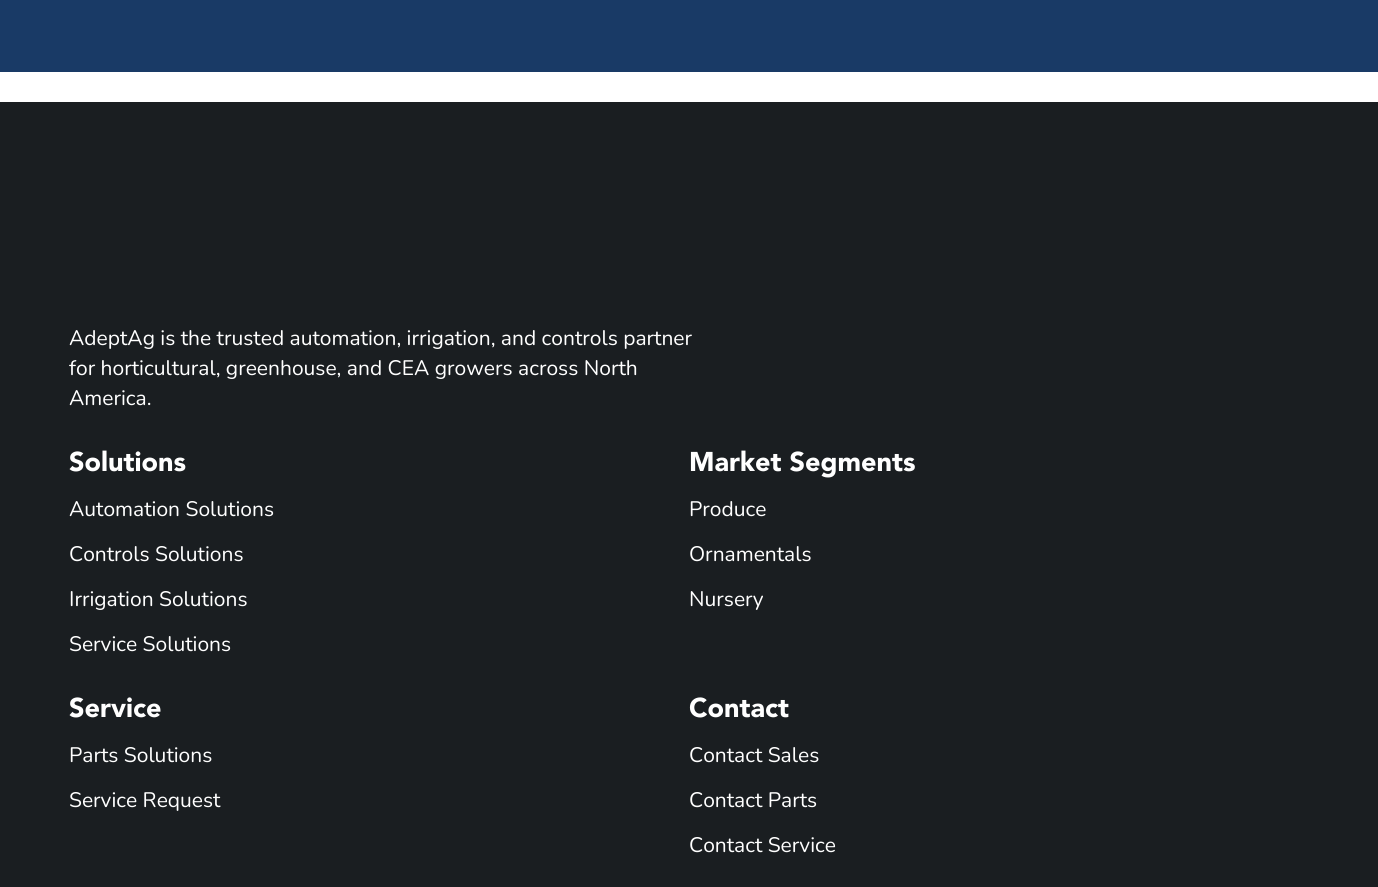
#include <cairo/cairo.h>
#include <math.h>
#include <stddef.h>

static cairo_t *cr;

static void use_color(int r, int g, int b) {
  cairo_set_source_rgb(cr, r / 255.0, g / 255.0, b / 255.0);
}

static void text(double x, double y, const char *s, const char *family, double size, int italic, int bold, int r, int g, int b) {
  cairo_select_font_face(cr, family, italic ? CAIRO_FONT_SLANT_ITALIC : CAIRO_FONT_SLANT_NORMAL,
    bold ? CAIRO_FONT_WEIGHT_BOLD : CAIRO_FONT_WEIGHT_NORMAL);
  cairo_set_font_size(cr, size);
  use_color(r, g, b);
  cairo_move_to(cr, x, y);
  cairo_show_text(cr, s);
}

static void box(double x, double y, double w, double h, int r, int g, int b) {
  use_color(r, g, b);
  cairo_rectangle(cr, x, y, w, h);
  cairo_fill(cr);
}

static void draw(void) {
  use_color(255, 255, 255);
  cairo_paint(cr);
  box(0, 0, 1378, 72, 25, 58, 102);
  box(0, 102, 1378, 785, 26, 30, 33);
  text(69, 345, "AdeptAg is the trusted automation, irrigation, and controls partner", "Nunito", 21, 0, 0, 255, 255, 255);
  text(69, 375, "for horticultural, greenhouse, and CEA growers across North", "Nunito", 21, 0, 0, 255, 255, 255);
  text(69, 405, "America.", "Nunito", 21, 0, 0, 255, 255, 255);
  text(69, 471, "Solutions", "Avenir Black", 27, 0, 0, 255, 255, 255);
  text(69, 516, "Automation Solutions", "Nunito", 21, 0, 0, 255, 255, 255);
  text(69, 561, "Controls Solutions", "Nunito", 21, 0, 0, 255, 255, 255);
  text(69, 606, "Irrigation Solutions", "Nunito", 21, 0, 0, 255, 255, 255);
  text(69, 651, "Service Solutions", "Nunito", 21, 0, 0, 255, 255, 255);
  text(689, 471, "Market Segments", "Avenir Black", 27, 0, 0, 255, 255, 255);
  text(689, 516, "Produce", "Nunito", 21, 0, 0, 255, 255, 255);
  text(689, 561, "Ornamentals", "Nunito", 21, 0, 0, 255, 255, 255);
  text(689, 606, "Nursery", "Nunito", 21, 0, 0, 255, 255, 255);
  text(69, 717, "Service", "Avenir Black", 27, 0, 0, 255, 255, 255);
  text(69, 762, "Parts Solutions", "Nunito", 21, 0, 0, 255, 255, 255);
  text(69, 807, "Service Request", "Nunito", 21, 0, 0, 255, 255, 255);
  text(689, 717, "Contact", "Avenir Black", 27, 0, 0, 255, 255, 255);
  text(689, 762, "Contact Sales", "Nunito", 21, 0, 0, 255, 255, 255);
  text(689, 807, "Contact Parts", "Nunito", 21, 0, 0, 255, 255, 255);
  text(689, 852, "Contact Service", "Nunito", 21, 0, 0, 255, 255, 255);
}

int main(void) {
  cairo_surface_t *surface = cairo_image_surface_create(CAIRO_FORMAT_RGB24, 1378, 887);
  cr = cairo_create(surface);
  cairo_font_options_t *options = cairo_font_options_create();
  cairo_font_options_set_hint_metrics(options, CAIRO_HINT_METRICS_OFF);
  cairo_font_options_set_hint_style(options, CAIRO_HINT_STYLE_NONE);
  cairo_set_font_options(cr, options);
  cairo_set_miter_limit(cr, 4);
  draw();
  cairo_surface_write_to_png(surface, "out.png");
  cairo_font_options_destroy(options);
  cairo_destroy(cr);
  cairo_surface_destroy(surface);
  return 0;
}
